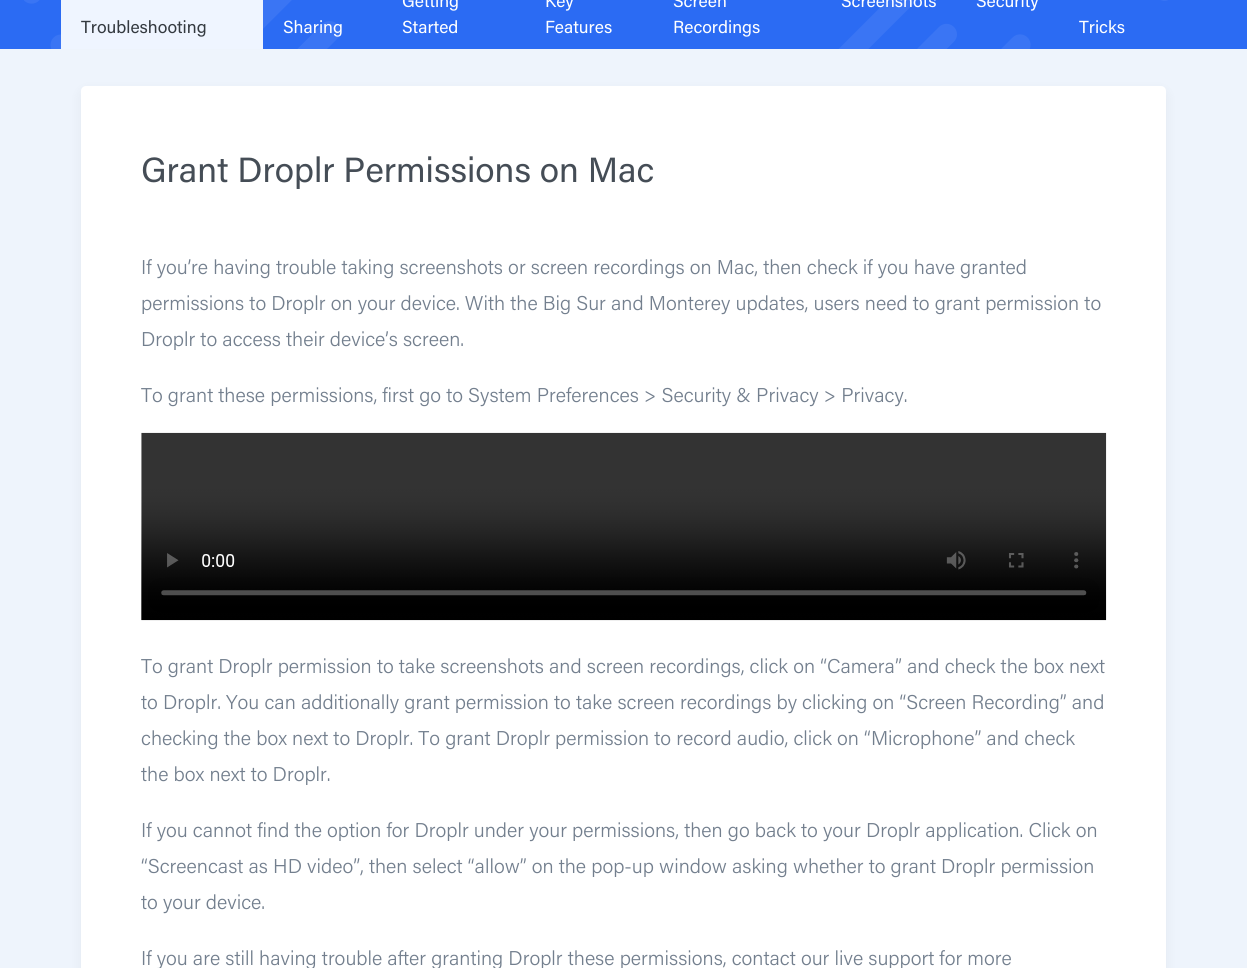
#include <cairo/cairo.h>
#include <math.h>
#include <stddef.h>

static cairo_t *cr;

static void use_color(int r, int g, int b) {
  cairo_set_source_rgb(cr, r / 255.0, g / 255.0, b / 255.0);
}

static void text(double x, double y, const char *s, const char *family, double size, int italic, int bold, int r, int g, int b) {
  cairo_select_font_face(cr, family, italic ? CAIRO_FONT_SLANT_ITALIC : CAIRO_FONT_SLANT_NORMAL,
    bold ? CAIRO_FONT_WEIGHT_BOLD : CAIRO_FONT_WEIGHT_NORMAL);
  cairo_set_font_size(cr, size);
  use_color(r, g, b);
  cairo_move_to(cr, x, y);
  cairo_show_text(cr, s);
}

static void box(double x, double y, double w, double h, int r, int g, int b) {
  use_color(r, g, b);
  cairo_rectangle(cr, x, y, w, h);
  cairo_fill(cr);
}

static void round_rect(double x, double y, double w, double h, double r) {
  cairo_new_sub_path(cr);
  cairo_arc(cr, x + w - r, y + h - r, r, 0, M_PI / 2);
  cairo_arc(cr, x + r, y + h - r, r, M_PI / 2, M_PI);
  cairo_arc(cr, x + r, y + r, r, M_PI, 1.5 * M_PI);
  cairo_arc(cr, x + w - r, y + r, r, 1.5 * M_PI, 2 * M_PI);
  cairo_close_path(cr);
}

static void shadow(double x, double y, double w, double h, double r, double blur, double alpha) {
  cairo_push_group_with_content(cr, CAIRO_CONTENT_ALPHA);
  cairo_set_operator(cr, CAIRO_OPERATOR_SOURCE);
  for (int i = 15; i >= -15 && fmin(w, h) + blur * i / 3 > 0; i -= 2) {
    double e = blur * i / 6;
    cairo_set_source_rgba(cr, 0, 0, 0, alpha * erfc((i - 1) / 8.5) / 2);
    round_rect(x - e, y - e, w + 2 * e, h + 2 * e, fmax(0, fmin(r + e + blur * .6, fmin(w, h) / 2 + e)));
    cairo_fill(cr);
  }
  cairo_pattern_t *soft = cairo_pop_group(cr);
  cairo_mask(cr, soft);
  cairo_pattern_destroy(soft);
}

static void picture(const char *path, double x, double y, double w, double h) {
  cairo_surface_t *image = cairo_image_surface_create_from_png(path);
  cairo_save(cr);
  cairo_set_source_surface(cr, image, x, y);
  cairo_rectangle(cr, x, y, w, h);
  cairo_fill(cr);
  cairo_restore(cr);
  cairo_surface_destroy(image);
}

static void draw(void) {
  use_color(238, 244, 252);
  cairo_paint(cr);
  box(0, 0, 1247, 49, 43, 107, 243);
  picture("img_01.png", 24, 0, 1144, 49);
  box(61, 0, 202, 49, 239, 245, 255);
  use_color(0, 0, 0);
  shadow(81, 91, 1085, 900, 5, 6, 0.05);
  use_color(255, 255, 255);
  round_rect(81, 86, 1085, 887, 5);
  cairo_fill(cr);
  picture("img_02.png", 141, 432, 966, 189);
  text(402, 7, "Getting", "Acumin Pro", 17.5, 0, 0, 255, 255, 255);
  text(402, 33, "Started", "Acumin Pro", 17.5, 0, 0, 255, 255, 255);
  text(545, 7, "Key", "Acumin Pro", 17.5, 0, 0, 255, 255, 255);
  text(545, 33, "Features", "Acumin Pro", 17.5, 0, 0, 255, 255, 255);
  text(673, 7, "Screen", "Acumin Pro", 17.5, 0, 0, 255, 255, 255);
  text(673, 33, "Recordings", "Acumin Pro", 17.5, 0, 0, 255, 255, 255);
  text(841, 7, "Screenshots", "Acumin Pro", 17.5, 0, 0, 255, 255, 255);
  text(976, 7, "Security", "Acumin Pro", 17.5, 0, 0, 255, 255, 255);
  text(81, 33, "Troubleshooting", "Acumin Pro", 17.5, 0, 0, 52, 58, 64);
  text(283, 33, "Sharing", "Acumin Pro", 17.5, 0, 0, 255, 255, 255);
  text(1079, 33, "Tricks", "Acumin Pro", 17.5, 0, 0, 255, 255, 255);
  text(141, 182, "Grant Droplr Permissions on Mac", "Acumin Pro", 35, 0, 0, 69, 77, 86);
  text(141, 274, "If you’re having trouble taking screenshots or screen recordings on Mac, then check if you have granted", "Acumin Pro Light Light", 20, 0, 0, 115, 127, 142);
  text(141, 310, "permissions to Droplr on your device. With the Big Sur and Monterey updates, users need to grant permission to", "Acumin Pro Light Light", 20, 0, 0, 115, 127, 142);
  text(141, 346, "Droplr to access their device’s screen.", "Acumin Pro Light Light", 20, 0, 0, 115, 127, 142);
  text(141, 402, "To grant these permissions, first go to System Preferences > Security & Privacy > Privacy.", "Acumin Pro Light Light", 20, 0, 0, 115, 127, 142);
  text(141, 673, "To grant Droplr permission to take screenshots and screen recordings, click on “Camera” and check the box next", "Acumin Pro Light Light", 20, 0, 0, 115, 127, 142);
  text(141, 709, "to Droplr. You can additionally grant permission to take screen recordings by clicking on “Screen Recording” and", "Acumin Pro Light Light", 20, 0, 0, 115, 127, 142);
  text(141, 745, "checking the box next to Droplr. To grant Droplr permission to record audio, click on “Microphone” and check", "Acumin Pro Light Light", 20, 0, 0, 115, 127, 142);
  text(141, 781, "the box next to Droplr.", "Acumin Pro Light Light", 20, 0, 0, 115, 127, 142);
  text(141, 837, "If you cannot find the option for Droplr under your permissions, then go back to your Droplr application. Click on", "Acumin Pro Light Light", 20, 0, 0, 115, 127, 142);
  text(141, 873, "“Screencast as HD video”, then select “allow” on the pop-up window asking whether to grant Droplr permission", "Acumin Pro Light Light", 20, 0, 0, 115, 127, 142);
  text(141, 909, "to your device.", "Acumin Pro Light Light", 20, 0, 0, 115, 127, 142);
  text(141, 965, "If you are still having trouble after granting Droplr these permissions, contact our live support for more", "Acumin Pro Light Light", 20, 0, 0, 115, 127, 142);
}

int main(void) {
  cairo_surface_t *surface = cairo_image_surface_create(CAIRO_FORMAT_RGB24, 1247, 968);
  cr = cairo_create(surface);
  cairo_font_options_t *options = cairo_font_options_create();
  cairo_font_options_set_hint_metrics(options, CAIRO_HINT_METRICS_OFF);
  cairo_font_options_set_hint_style(options, CAIRO_HINT_STYLE_NONE);
  cairo_set_font_options(cr, options);
  cairo_set_miter_limit(cr, 4);
  draw();
  cairo_surface_write_to_png(surface, "out.png");
  cairo_font_options_destroy(options);
  cairo_destroy(cr);
  cairo_surface_destroy(surface);
  return 0;
}
